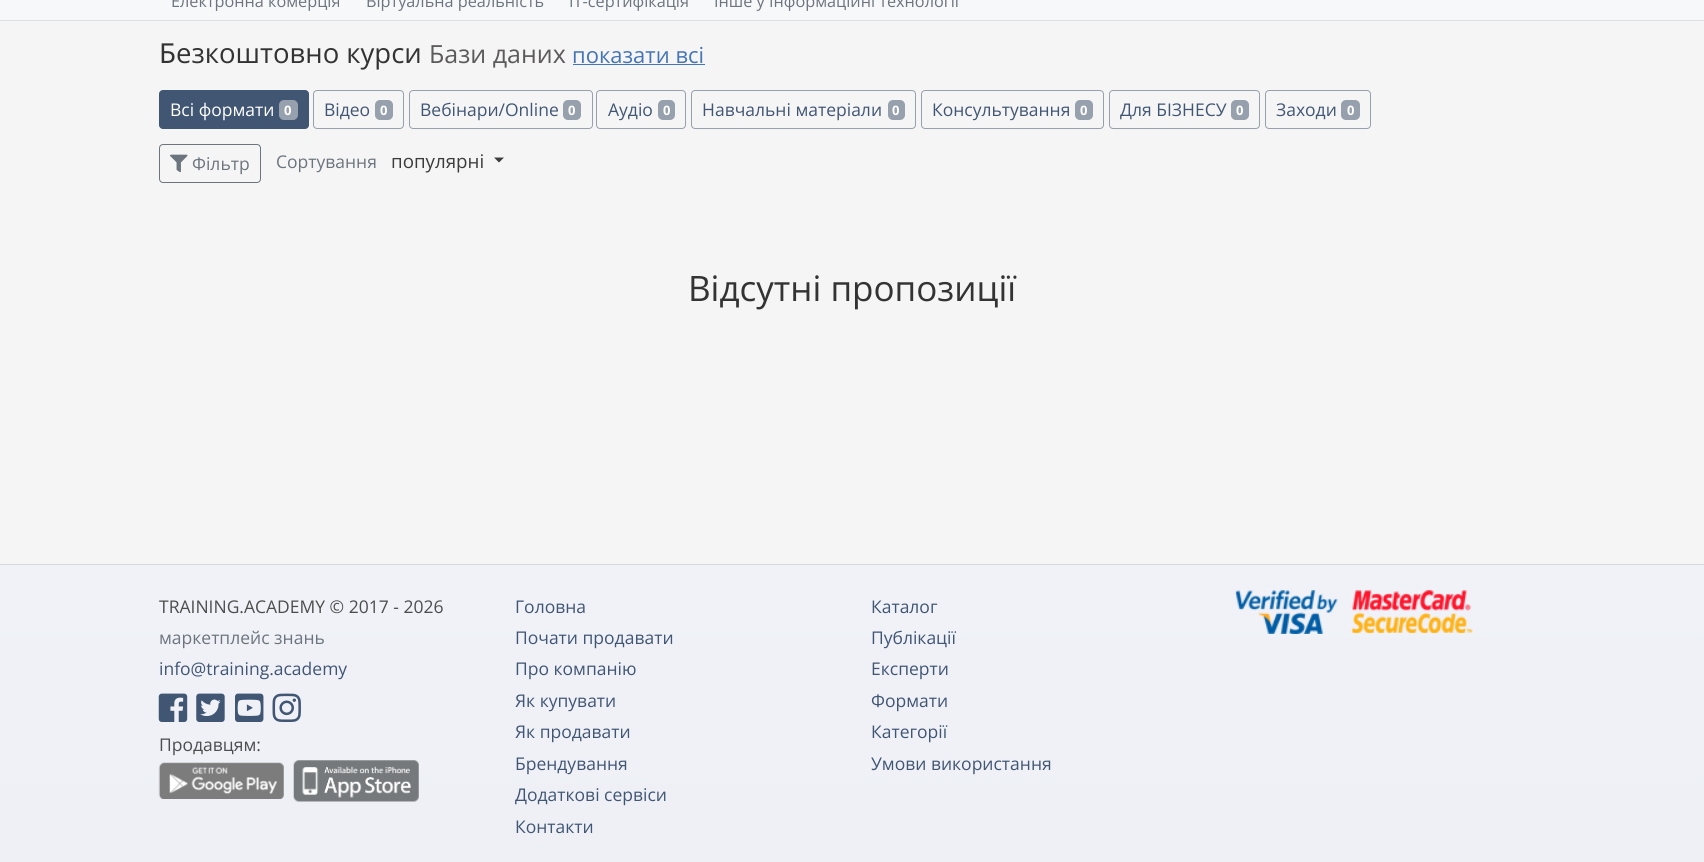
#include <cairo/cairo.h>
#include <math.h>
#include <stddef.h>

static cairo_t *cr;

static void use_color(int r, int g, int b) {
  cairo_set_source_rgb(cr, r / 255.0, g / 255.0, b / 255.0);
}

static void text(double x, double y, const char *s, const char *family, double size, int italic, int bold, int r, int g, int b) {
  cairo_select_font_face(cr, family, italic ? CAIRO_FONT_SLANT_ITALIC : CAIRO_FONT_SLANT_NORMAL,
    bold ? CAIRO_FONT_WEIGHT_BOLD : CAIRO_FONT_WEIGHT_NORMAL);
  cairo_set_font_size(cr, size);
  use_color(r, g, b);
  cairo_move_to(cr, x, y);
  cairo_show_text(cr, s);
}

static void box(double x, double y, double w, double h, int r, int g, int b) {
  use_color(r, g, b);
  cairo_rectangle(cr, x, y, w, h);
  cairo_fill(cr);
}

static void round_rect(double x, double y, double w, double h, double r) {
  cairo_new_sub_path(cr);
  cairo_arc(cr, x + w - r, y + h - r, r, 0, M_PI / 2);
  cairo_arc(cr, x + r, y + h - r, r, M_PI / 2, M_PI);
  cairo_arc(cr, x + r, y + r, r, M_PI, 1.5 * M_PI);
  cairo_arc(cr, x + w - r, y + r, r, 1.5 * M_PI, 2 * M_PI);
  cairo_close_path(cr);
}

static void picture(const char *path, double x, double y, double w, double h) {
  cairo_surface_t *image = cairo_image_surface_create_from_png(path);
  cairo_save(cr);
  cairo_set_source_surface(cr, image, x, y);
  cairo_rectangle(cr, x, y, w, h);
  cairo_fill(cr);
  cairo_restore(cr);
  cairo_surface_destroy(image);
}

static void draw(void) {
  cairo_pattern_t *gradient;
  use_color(245, 245, 245);
  cairo_paint(cr);
  box(0, 0, 1704, 20, 247, 248, 250);
  box(0, 20, 1704, 1, 222, 223, 224);
  box(573, 64, 132, 1, 69, 117, 183);
  use_color(65, 86, 115);
  round_rect(159.5, 90.5, 149, 38, 3.5);
  cairo_fill_preserve(cr);
  cairo_set_line_width(cr, 1);
  cairo_stroke(cr);
  use_color(151, 160, 173);
  round_rect(279, 100, 19, 20, 5);
  cairo_fill(cr);
  round_rect(313.5, 90.5, 90, 38, 3.5);
  cairo_stroke(cr);
  round_rect(375, 100, 18, 20, 5);
  cairo_fill(cr);
  round_rect(409.5, 90.5, 183, 38, 3.5);
  cairo_stroke(cr);
  round_rect(563, 100, 18, 20, 5);
  cairo_fill(cr);
  round_rect(596.5, 90.5, 89, 38, 3.5);
  cairo_stroke(cr);
  round_rect(658, 100, 17, 20, 5);
  cairo_fill(cr);
  round_rect(691.5, 90.5, 224, 38, 3.5);
  cairo_stroke(cr);
  round_rect(888, 100, 17, 20, 5);
  cairo_fill(cr);
  round_rect(921.5, 90.5, 182, 38, 3.5);
  cairo_stroke(cr);
  round_rect(1075, 100, 18, 20, 5);
  cairo_fill(cr);
  round_rect(1109.5, 90.5, 150, 38, 3.5);
  cairo_stroke(cr);
  round_rect(1231, 100, 18, 20, 5);
  cairo_fill(cr);
  round_rect(1265.5, 90.5, 105, 38, 3.5);
  cairo_stroke(cr);
  round_rect(1341, 100, 19, 20, 5);
  cairo_fill(cr);
  round_rect(159.5, 144.5, 101, 38, 3.5);
  use_color(108, 117, 125);
  cairo_stroke(cr);
  picture("img_01.png", 170, 154, 18, 19);
  use_color(60, 60, 60);
  cairo_new_path(cr);
  cairo_move_to(cr, 494, 157.5);
  cairo_line_to(cr, 504, 157.5);
  cairo_line_to(cr, 499, 162.5);
  cairo_close_path(cr);
  cairo_fill(cr);
  gradient = cairo_pattern_create_linear(853, 565, 853, 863);
  cairo_pattern_add_color_stop_rgba(gradient, 0, 0.941, 0.949, 0.969, 1);
  cairo_pattern_add_color_stop_rgba(gradient, 1, 0.933, 0.941, 0.965, 1);
  cairo_set_source(cr, gradient);
  cairo_pattern_destroy(gradient);
  cairo_rectangle(cr, 0, 565, 1704, 297);
  cairo_fill(cr);
  box(0, 564, 1704, 1, 214, 216, 219);
  picture("img_02.png", 158, 693, 30, 29);
  picture("img_03.png", 196, 693, 29, 29);
  picture("img_04.png", 235, 693, 29, 29);
  picture("img_05.png", 272, 693, 29, 29);
  picture("img_06.png", 158, 762, 126, 37);
  picture("img_07.png", 293, 760, 126, 42);
  picture("img_08.png", 1235, 590, 238, 44);
  text(171, 7, "Електронна комерція", "Open Sans", 16.25, 0, 0, 108, 117, 125);
  text(366, 7, "Віртуальна реальність", "Open Sans", 16.25, 0, 0, 108, 117, 125);
  text(569, 7, "ІТ-сертифікація", "Open Sans", 16.25, 0, 0, 108, 117, 125);
  text(714, 7, "Інше у Інформаційні технології", "Open Sans", 16.25, 0, 0, 108, 117, 125);
  text(159, 63, "Б", "Noto Sans", 27.5, 0, 0, 51, 51, 51);
  text(176, 63, "езкоштовно курси", "Open Sans", 27.5, 0, 0, 51, 51, 51);
  text(429, 63, "Бази даних", "Open Sans", 25, 0, 0, 92, 90, 90);
  text(572, 63, "показати всі", "Open Sans", 22, 0, 0, 69, 117, 183);
  text(170, 116, "Всі формати", "Open Sans", 17.5, 0, 0, 255, 255, 255);
  text(284, 115, "0", "Open Sans", 13, 0, 1, 255, 255, 255);
  text(324, 116, "Відео", "Open Sans", 17.5, 0, 0, 65, 86, 115);
  text(380, 115, "0", "Open Sans", 13, 0, 1, 255, 255, 255);
  text(420, 116, "Вебінари/Online", "Open Sans", 17.5, 0, 0, 65, 86, 115);
  text(568, 115, "0", "Open Sans", 13, 0, 1, 255, 255, 255);
  text(608, 116, "Аудіо", "Open Sans", 17.5, 0, 0, 65, 86, 115);
  text(663, 115, "0", "Open Sans", 13, 0, 1, 255, 255, 255);
  text(702, 116, "Навчальні матеріали", "Open Sans", 17.5, 0, 0, 65, 86, 115);
  text(892, 115, "0", "Open Sans", 13, 0, 1, 255, 255, 255);
  text(932, 116, "Консультування", "Open Sans", 17.5, 0, 0, 65, 86, 115);
  text(1080, 115, "0", "Open Sans", 13, 0, 1, 255, 255, 255);
  text(1120, 116, "Для БІЗНЕСУ", "Open Sans", 17.5, 0, 0, 65, 86, 115);
  text(1236, 115, "0", "Open Sans", 13, 0, 1, 255, 255, 255);
  text(1276, 116, "Заходи", "Open Sans", 17.5, 0, 0, 65, 86, 115);
  text(1347, 115, "0", "Open Sans", 13, 0, 1, 255, 255, 255);
  text(192, 170, "Фільтр", "Open Sans", 17.5, 0, 0, 108, 117, 125);
  text(276, 168, "Сортування", "Open Sans", 17.5, 0, 0, 108, 117, 125);
  text(391, 168, "популярні", "Open Sans", 18.75, 0, 0, 60, 60, 60);
  text(688, 301, "Відсутні пропозиції", "Open Sans", 35, 0, 0, 51, 51, 51);
  text(159, 613, "TRAINING.ACADEMY © 2017 - 2026", "Open Sans", 17.5, 0, 0, 77, 77, 77);
  text(159, 644, "маркетплейс знань", "Open Sans", 17.5, 0, 0, 108, 117, 125);
  text(159, 675, "info@training.academy", "Open Sans", 17.5, 0, 0, 65, 86, 115);
  text(159, 751, "Продавцям:", "Open Sans", 17.5, 0, 0, 77, 77, 77);
  text(515, 613, "Головна", "Open Sans", 17.5, 0, 0, 65, 86, 115);
  text(515, 644, "Почати продавати", "Open Sans", 17.5, 0, 0, 65, 86, 115);
  text(515, 675, "Про компанію", "Open Sans", 17.5, 0, 0, 65, 86, 115);
  text(515, 707, "Як купувати", "Open Sans", 17.5, 0, 0, 65, 86, 115);
  text(515, 738, "Як продавати", "Open Sans", 17.5, 0, 0, 65, 86, 115);
  text(515, 770, "Брендування", "Open Sans", 17.5, 0, 0, 65, 86, 115);
  text(515, 801, "Додаткові сервіси", "Open Sans", 17.5, 0, 0, 65, 86, 115);
  text(515, 833, "Контакти", "Open Sans", 17.5, 0, 0, 65, 86, 115);
  text(871, 613, "Каталог", "Open Sans", 17.5, 0, 0, 65, 86, 115);
  text(871, 644, "Публікації", "Open Sans", 17.5, 0, 0, 65, 86, 115);
  text(871, 675, "Експерти", "Open Sans", 17.5, 0, 0, 65, 86, 115);
  text(871, 707, "Формати", "Open Sans", 17.5, 0, 0, 65, 86, 115);
  text(871, 738, "Категорії", "Open Sans", 17.5, 0, 0, 65, 86, 115);
  text(871, 770, "Умови використання", "Open Sans", 17.5, 0, 0, 65, 86, 115);
}

int main(void) {
  cairo_surface_t *surface = cairo_image_surface_create(CAIRO_FORMAT_RGB24, 1704, 862);
  cr = cairo_create(surface);
  cairo_font_options_t *options = cairo_font_options_create();
  cairo_font_options_set_hint_metrics(options, CAIRO_HINT_METRICS_OFF);
  cairo_font_options_set_hint_style(options, CAIRO_HINT_STYLE_NONE);
  cairo_set_font_options(cr, options);
  cairo_set_miter_limit(cr, 4);
  draw();
  cairo_surface_write_to_png(surface, "out.png");
  cairo_font_options_destroy(options);
  cairo_destroy(cr);
  cairo_surface_destroy(surface);
  return 0;
}
